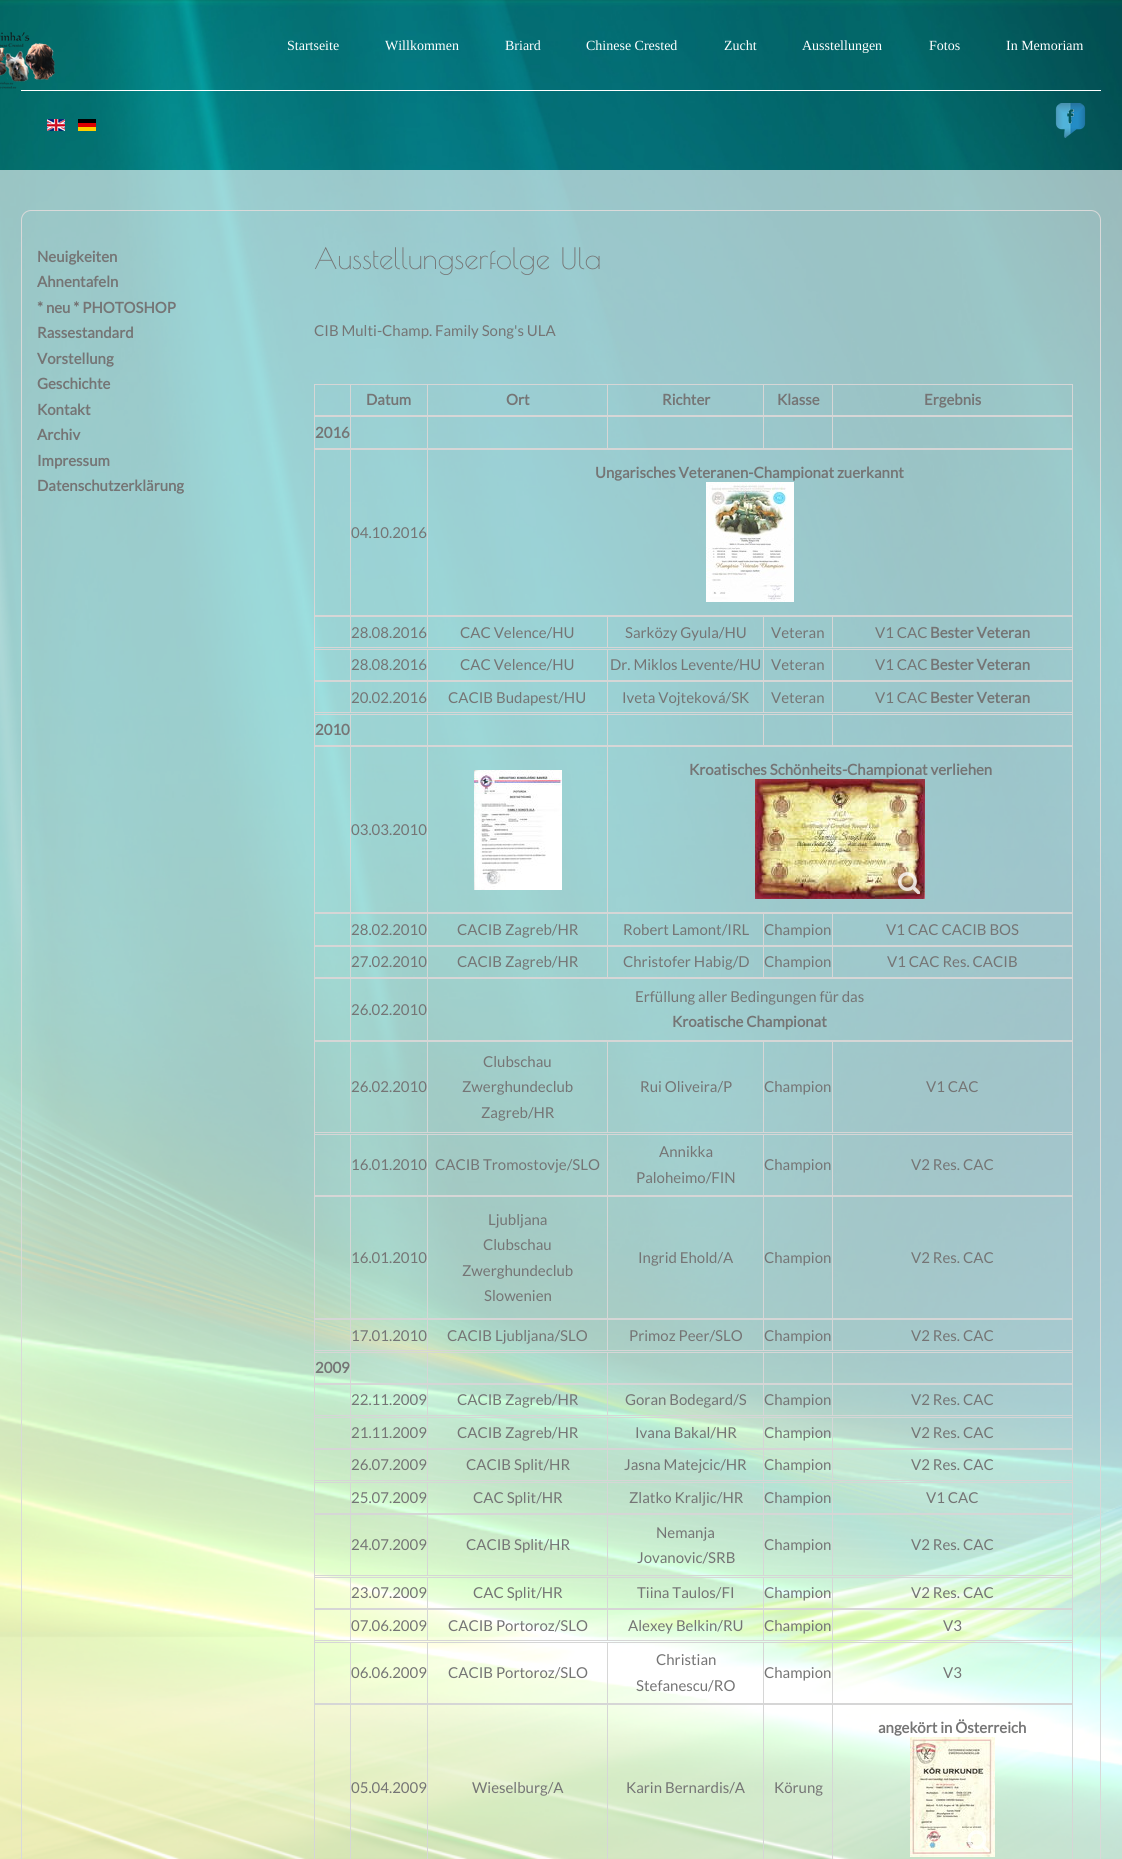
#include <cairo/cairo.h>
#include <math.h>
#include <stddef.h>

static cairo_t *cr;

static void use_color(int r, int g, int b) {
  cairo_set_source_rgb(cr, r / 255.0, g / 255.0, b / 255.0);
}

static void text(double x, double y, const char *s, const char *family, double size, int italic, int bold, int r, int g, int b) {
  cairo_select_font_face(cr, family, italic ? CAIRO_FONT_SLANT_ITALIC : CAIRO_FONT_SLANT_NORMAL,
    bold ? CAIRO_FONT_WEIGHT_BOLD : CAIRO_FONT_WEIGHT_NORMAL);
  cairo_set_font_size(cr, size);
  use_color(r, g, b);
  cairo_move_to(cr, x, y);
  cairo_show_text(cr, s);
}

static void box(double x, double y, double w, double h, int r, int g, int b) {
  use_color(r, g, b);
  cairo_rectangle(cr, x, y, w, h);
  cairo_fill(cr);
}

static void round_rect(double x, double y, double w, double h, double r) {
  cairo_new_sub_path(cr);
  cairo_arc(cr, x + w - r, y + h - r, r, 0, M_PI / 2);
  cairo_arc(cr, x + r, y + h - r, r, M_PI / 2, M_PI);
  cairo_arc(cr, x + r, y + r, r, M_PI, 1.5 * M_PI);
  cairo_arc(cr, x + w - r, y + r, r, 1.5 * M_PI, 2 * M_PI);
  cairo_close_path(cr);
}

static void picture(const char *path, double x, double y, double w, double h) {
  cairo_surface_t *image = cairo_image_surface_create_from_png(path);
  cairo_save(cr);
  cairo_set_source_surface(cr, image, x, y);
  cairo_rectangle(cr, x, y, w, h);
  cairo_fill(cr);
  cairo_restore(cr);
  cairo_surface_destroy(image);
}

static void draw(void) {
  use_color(255, 255, 255);
  cairo_paint(cr);
  picture("img_01.png", 0, 0, 1122, 1859);
  box(21, 90, 1080, 1, 255, 255, 255);
  picture("img_02.png", 0, 32, 55, 57);
  picture("img_03.png", 1055, 103, 31, 35);
  picture("img_04.png", 47, 119, 18, 12);
  picture("img_05.png", 78, 119, 18, 12);
  round_rect(21.5, 210.5, 1079, 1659, 9.5);
  use_color(217, 217, 217);
  cairo_set_line_width(cr, 1);
  cairo_stroke(cr);
  box(832, 384, 241, 1, 214, 214, 214);
  box(314, 415, 759, 1, 214, 214, 214);
  box(832, 384, 1, 32, 214, 214, 214);
  box(763, 384, 70, 1, 214, 214, 214);
  box(763, 384, 1, 32, 214, 214, 214);
  box(607, 384, 157, 1, 214, 214, 214);
  box(607, 384, 1, 32, 214, 214, 214);
  box(427, 384, 181, 1, 214, 214, 214);
  box(427, 384, 1, 32, 214, 214, 214);
  box(350, 384, 78, 1, 214, 214, 214);
  box(350, 384, 1, 32, 214, 214, 214);
  box(314, 384, 37, 1, 214, 214, 214);
  box(314, 384, 1, 32, 214, 214, 214);
  box(1072, 384, 1, 32, 214, 214, 214);
  box(832, 416, 241, 1, 214, 214, 214);
  box(314, 448, 759, 1, 214, 214, 214);
  box(832, 416, 1, 33, 214, 214, 214);
  box(763, 416, 70, 1, 214, 214, 214);
  box(763, 416, 1, 33, 214, 214, 214);
  box(607, 416, 157, 1, 214, 214, 214);
  box(607, 416, 1, 33, 214, 214, 214);
  box(427, 416, 181, 1, 214, 214, 214);
  box(427, 416, 1, 33, 214, 214, 214);
  box(350, 416, 78, 1, 214, 214, 214);
  box(350, 416, 1, 33, 214, 214, 214);
  box(314, 416, 37, 1, 214, 214, 214);
  box(314, 416, 1, 33, 214, 214, 214);
  box(1072, 416, 1, 33, 214, 214, 214);
  box(427, 449, 646, 1, 214, 214, 214);
  box(314, 615, 759, 1, 214, 214, 214);
  box(427, 449, 1, 167, 214, 214, 214);
  box(350, 449, 78, 1, 214, 214, 214);
  box(350, 449, 1, 167, 214, 214, 214);
  box(314, 449, 37, 1, 214, 214, 214);
  box(314, 449, 1, 167, 214, 214, 214);
  box(1072, 449, 1, 167, 214, 214, 214);
  picture("img_06.png", 706, 482, 88, 120);
  picture("img_07.png", 766, 585, 20, 9);
  box(832, 616, 241, 1, 214, 214, 214);
  box(314, 647, 759, 1, 214, 214, 214);
  box(832, 616, 1, 32, 214, 214, 214);
  box(763, 616, 70, 1, 214, 214, 214);
  box(763, 616, 1, 32, 214, 214, 214);
  box(607, 616, 157, 1, 214, 214, 214);
  box(607, 616, 1, 32, 214, 214, 214);
  box(427, 616, 181, 1, 214, 214, 214);
  box(427, 616, 1, 32, 214, 214, 214);
  box(350, 616, 78, 1, 214, 214, 214);
  box(350, 616, 1, 32, 214, 214, 214);
  box(314, 616, 37, 1, 214, 214, 214);
  box(832, 649, 241, 1, 214, 214, 214);
  box(314, 680, 759, 1, 214, 214, 214);
  box(832, 649, 1, 32, 214, 214, 214);
  box(763, 649, 70, 1, 214, 214, 214);
  box(763, 649, 1, 32, 214, 214, 214);
  box(607, 649, 157, 1, 214, 214, 214);
  box(607, 649, 1, 32, 214, 214, 214);
  box(427, 649, 181, 1, 214, 214, 214);
  box(427, 649, 1, 32, 214, 214, 214);
  box(350, 649, 78, 1, 214, 214, 214);
  box(350, 649, 1, 32, 214, 214, 214);
  box(314, 649, 37, 1, 214, 214, 214);
  box(314, 649, 1, 32, 214, 214, 214);
  box(314, 647, 1, 3, 214, 214, 214);
  box(314, 616, 1, 32, 214, 214, 214);
  box(1072, 649, 1, 32, 214, 214, 214);
  box(1072, 647, 1, 3, 214, 214, 214);
  box(1072, 616, 1, 32, 214, 214, 214);
  box(832, 681, 241, 1, 214, 214, 214);
  box(314, 712, 759, 1, 214, 214, 214);
  box(832, 681, 1, 32, 214, 214, 214);
  box(763, 681, 70, 1, 214, 214, 214);
  box(763, 681, 1, 32, 214, 214, 214);
  box(607, 681, 157, 1, 214, 214, 214);
  box(607, 681, 1, 32, 214, 214, 214);
  box(427, 681, 181, 1, 214, 214, 214);
  box(427, 681, 1, 32, 214, 214, 214);
  box(350, 681, 78, 1, 214, 214, 214);
  box(350, 681, 1, 32, 214, 214, 214);
  box(314, 681, 37, 1, 214, 214, 214);
  box(832, 714, 241, 1, 214, 214, 214);
  box(314, 745, 759, 1, 214, 214, 214);
  box(832, 714, 1, 32, 214, 214, 214);
  box(763, 714, 70, 1, 214, 214, 214);
  box(763, 714, 1, 32, 214, 214, 214);
  box(607, 714, 157, 1, 214, 214, 214);
  box(607, 714, 1, 32, 214, 214, 214);
  box(427, 714, 181, 1, 214, 214, 214);
  box(427, 714, 1, 32, 214, 214, 214);
  box(350, 714, 78, 1, 214, 214, 214);
  box(350, 714, 1, 32, 214, 214, 214);
  box(314, 714, 37, 1, 214, 214, 214);
  box(314, 714, 1, 32, 214, 214, 214);
  box(314, 712, 1, 3, 214, 214, 214);
  box(314, 681, 1, 32, 214, 214, 214);
  box(1072, 714, 1, 32, 214, 214, 214);
  box(1072, 712, 1, 3, 214, 214, 214);
  box(1072, 681, 1, 32, 214, 214, 214);
  box(607, 746, 466, 1, 214, 214, 214);
  box(314, 912, 759, 1, 214, 214, 214);
  box(607, 746, 1, 167, 214, 214, 214);
  box(427, 746, 181, 1, 214, 214, 214);
  box(427, 746, 1, 167, 214, 214, 214);
  box(350, 746, 78, 1, 214, 214, 214);
  box(350, 746, 1, 167, 214, 214, 214);
  box(314, 746, 37, 1, 214, 214, 214);
  box(314, 746, 1, 167, 214, 214, 214);
  picture("img_08.png", 474, 770, 88, 120);
  box(1072, 746, 1, 167, 214, 214, 214);
  picture("img_09.png", 755, 779, 170, 120);
  picture("img_10.png", 898, 872, 22, 22);
  box(832, 913, 241, 1, 214, 214, 214);
  box(314, 945, 759, 1, 214, 214, 214);
  box(832, 913, 1, 33, 214, 214, 214);
  box(763, 913, 70, 1, 214, 214, 214);
  box(763, 913, 1, 33, 214, 214, 214);
  box(607, 913, 157, 1, 214, 214, 214);
  box(607, 913, 1, 33, 214, 214, 214);
  box(427, 913, 181, 1, 214, 214, 214);
  box(427, 913, 1, 33, 214, 214, 214);
  box(350, 913, 78, 1, 214, 214, 214);
  box(350, 913, 1, 33, 214, 214, 214);
  box(314, 913, 37, 1, 214, 214, 214);
  box(314, 913, 1, 33, 214, 214, 214);
  box(1072, 913, 1, 33, 214, 214, 214);
  box(832, 946, 241, 1, 214, 214, 214);
  box(314, 977, 759, 1, 214, 214, 214);
  box(832, 946, 1, 32, 214, 214, 214);
  box(763, 946, 70, 1, 214, 214, 214);
  box(763, 946, 1, 32, 214, 214, 214);
  box(607, 946, 157, 1, 214, 214, 214);
  box(607, 946, 1, 32, 214, 214, 214);
  box(427, 946, 181, 1, 214, 214, 214);
  box(427, 946, 1, 32, 214, 214, 214);
  box(350, 946, 78, 1, 214, 214, 214);
  box(350, 946, 1, 32, 214, 214, 214);
  box(314, 946, 37, 1, 214, 214, 214);
  box(314, 946, 1, 32, 214, 214, 214);
  box(1072, 946, 1, 32, 214, 214, 214);
  box(427, 978, 646, 1, 214, 214, 214);
  box(314, 1040, 759, 1, 214, 214, 214);
  box(427, 978, 1, 63, 214, 214, 214);
  box(350, 978, 78, 1, 214, 214, 214);
  box(350, 978, 1, 63, 214, 214, 214);
  box(314, 978, 37, 1, 214, 214, 214);
  box(314, 978, 1, 63, 214, 214, 214);
  box(1072, 978, 1, 63, 214, 214, 214);
  box(832, 1041, 241, 1, 214, 214, 214);
  box(314, 1132, 759, 1, 214, 214, 214);
  box(832, 1041, 1, 92, 214, 214, 214);
  box(763, 1041, 70, 1, 214, 214, 214);
  box(763, 1041, 1, 92, 214, 214, 214);
  box(607, 1041, 157, 1, 214, 214, 214);
  box(607, 1041, 1, 92, 214, 214, 214);
  box(427, 1041, 181, 1, 214, 214, 214);
  box(427, 1041, 1, 92, 214, 214, 214);
  box(350, 1041, 78, 1, 214, 214, 214);
  box(350, 1041, 1, 92, 214, 214, 214);
  box(314, 1041, 37, 1, 214, 214, 214);
  box(832, 1134, 241, 1, 214, 214, 214);
  box(314, 1195, 759, 1, 214, 214, 214);
  box(832, 1134, 1, 62, 214, 214, 214);
  box(763, 1134, 70, 1, 214, 214, 214);
  box(763, 1134, 1, 62, 214, 214, 214);
  box(607, 1134, 157, 1, 214, 214, 214);
  box(607, 1134, 1, 62, 214, 214, 214);
  box(427, 1134, 181, 1, 214, 214, 214);
  box(427, 1134, 1, 62, 214, 214, 214);
  box(350, 1134, 78, 1, 214, 214, 214);
  box(350, 1134, 1, 62, 214, 214, 214);
  box(314, 1134, 37, 1, 214, 214, 214);
  box(314, 1134, 1, 62, 214, 214, 214);
  box(314, 1132, 1, 3, 214, 214, 214);
  box(314, 1041, 1, 92, 214, 214, 214);
  box(1072, 1134, 1, 62, 214, 214, 214);
  box(1072, 1132, 1, 3, 214, 214, 214);
  box(1072, 1041, 1, 92, 214, 214, 214);
  box(832, 1196, 241, 1, 214, 214, 214);
  box(314, 1318, 759, 1, 214, 214, 214);
  box(832, 1196, 1, 123, 214, 214, 214);
  box(763, 1196, 70, 1, 214, 214, 214);
  box(763, 1196, 1, 123, 214, 214, 214);
  box(607, 1196, 157, 1, 214, 214, 214);
  box(607, 1196, 1, 123, 214, 214, 214);
  box(427, 1196, 181, 1, 214, 214, 214);
  box(427, 1196, 1, 123, 214, 214, 214);
  box(350, 1196, 78, 1, 214, 214, 214);
  box(350, 1196, 1, 123, 214, 214, 214);
  box(314, 1196, 37, 1, 214, 214, 214);
  box(314, 1196, 1, 123, 214, 214, 214);
  box(1072, 1196, 1, 123, 214, 214, 214);
  box(832, 1319, 241, 1, 214, 214, 214);
  box(314, 1350, 759, 1, 214, 214, 214);
  box(832, 1319, 1, 32, 214, 214, 214);
  box(763, 1319, 70, 1, 214, 214, 214);
  box(763, 1319, 1, 32, 214, 214, 214);
  box(607, 1319, 157, 1, 214, 214, 214);
  box(607, 1319, 1, 32, 214, 214, 214);
  box(427, 1319, 181, 1, 214, 214, 214);
  box(427, 1319, 1, 32, 214, 214, 214);
  box(350, 1319, 78, 1, 214, 214, 214);
  box(350, 1319, 1, 32, 214, 214, 214);
  box(314, 1319, 37, 1, 214, 214, 214);
  box(832, 1352, 241, 1, 214, 214, 214);
  box(314, 1383, 759, 1, 214, 214, 214);
  box(832, 1352, 1, 32, 214, 214, 214);
  box(763, 1352, 70, 1, 214, 214, 214);
  box(763, 1352, 1, 32, 214, 214, 214);
  box(607, 1352, 157, 1, 214, 214, 214);
  box(607, 1352, 1, 32, 214, 214, 214);
  box(427, 1352, 181, 1, 214, 214, 214);
  box(427, 1352, 1, 32, 214, 214, 214);
  box(350, 1352, 78, 1, 214, 214, 214);
  box(350, 1352, 1, 32, 214, 214, 214);
  box(314, 1352, 37, 1, 214, 214, 214);
  box(314, 1352, 1, 32, 214, 214, 214);
  box(314, 1350, 1, 3, 214, 214, 214);
  box(314, 1319, 1, 32, 214, 214, 214);
  box(1072, 1352, 1, 32, 214, 214, 214);
  box(1072, 1350, 1, 3, 214, 214, 214);
  box(1072, 1319, 1, 32, 214, 214, 214);
  box(832, 1384, 241, 1, 214, 214, 214);
  box(314, 1415, 759, 1, 214, 214, 214);
  box(832, 1384, 1, 32, 214, 214, 214);
  box(763, 1384, 70, 1, 214, 214, 214);
  box(763, 1384, 1, 32, 214, 214, 214);
  box(607, 1384, 157, 1, 214, 214, 214);
  box(607, 1384, 1, 32, 214, 214, 214);
  box(427, 1384, 181, 1, 214, 214, 214);
  box(427, 1384, 1, 32, 214, 214, 214);
  box(350, 1384, 78, 1, 214, 214, 214);
  box(350, 1384, 1, 32, 214, 214, 214);
  box(314, 1384, 37, 1, 214, 214, 214);
  box(832, 1417, 241, 1, 214, 214, 214);
  box(314, 1448, 759, 1, 214, 214, 214);
  box(832, 1417, 1, 32, 214, 214, 214);
  box(763, 1417, 70, 1, 214, 214, 214);
  box(763, 1417, 1, 32, 214, 214, 214);
  box(607, 1417, 157, 1, 214, 214, 214);
  box(607, 1417, 1, 32, 214, 214, 214);
  box(427, 1417, 181, 1, 214, 214, 214);
  box(427, 1417, 1, 32, 214, 214, 214);
  box(350, 1417, 78, 1, 214, 214, 214);
  box(350, 1417, 1, 32, 214, 214, 214);
  box(314, 1417, 37, 1, 214, 214, 214);
  box(314, 1417, 1, 32, 214, 214, 214);
  box(314, 1415, 1, 3, 214, 214, 214);
  box(314, 1384, 1, 32, 214, 214, 214);
  box(1072, 1417, 1, 32, 214, 214, 214);
  box(1072, 1415, 1, 3, 214, 214, 214);
  box(1072, 1384, 1, 32, 214, 214, 214);
  box(832, 1449, 241, 1, 214, 214, 214);
  box(314, 1480, 759, 1, 214, 214, 214);
  box(832, 1449, 1, 32, 214, 214, 214);
  box(763, 1449, 70, 1, 214, 214, 214);
  box(763, 1449, 1, 32, 214, 214, 214);
  box(607, 1449, 157, 1, 214, 214, 214);
  box(607, 1449, 1, 32, 214, 214, 214);
  box(427, 1449, 181, 1, 214, 214, 214);
  box(427, 1449, 1, 32, 214, 214, 214);
  box(350, 1449, 78, 1, 214, 214, 214);
  box(350, 1449, 1, 32, 214, 214, 214);
  box(314, 1449, 37, 1, 214, 214, 214);
  box(832, 1482, 241, 1, 214, 214, 214);
  box(314, 1513, 759, 1, 214, 214, 214);
  box(832, 1482, 1, 32, 214, 214, 214);
  box(763, 1482, 70, 1, 214, 214, 214);
  box(763, 1482, 1, 32, 214, 214, 214);
  box(607, 1482, 157, 1, 214, 214, 214);
  box(607, 1482, 1, 32, 214, 214, 214);
  box(427, 1482, 181, 1, 214, 214, 214);
  box(427, 1482, 1, 32, 214, 214, 214);
  box(350, 1482, 78, 1, 214, 214, 214);
  box(350, 1482, 1, 32, 214, 214, 214);
  box(314, 1482, 37, 1, 214, 214, 214);
  box(314, 1482, 1, 32, 214, 214, 214);
  box(314, 1480, 1, 3, 214, 214, 214);
  box(314, 1449, 1, 32, 214, 214, 214);
  box(1072, 1482, 1, 32, 214, 214, 214);
  box(1072, 1480, 1, 3, 214, 214, 214);
  box(1072, 1449, 1, 32, 214, 214, 214);
  box(832, 1514, 241, 1, 214, 214, 214);
  box(314, 1575, 759, 1, 214, 214, 214);
  box(832, 1514, 1, 62, 214, 214, 214);
  box(763, 1514, 70, 1, 214, 214, 214);
  box(763, 1514, 1, 62, 214, 214, 214);
  box(607, 1514, 157, 1, 214, 214, 214);
  box(607, 1514, 1, 62, 214, 214, 214);
  box(427, 1514, 181, 1, 214, 214, 214);
  box(427, 1514, 1, 62, 214, 214, 214);
  box(350, 1514, 78, 1, 214, 214, 214);
  box(350, 1514, 1, 62, 214, 214, 214);
  box(314, 1514, 37, 1, 214, 214, 214);
  box(832, 1577, 241, 1, 214, 214, 214);
  box(314, 1608, 759, 1, 214, 214, 214);
  box(832, 1577, 1, 32, 214, 214, 214);
  box(763, 1577, 70, 1, 214, 214, 214);
  box(763, 1577, 1, 32, 214, 214, 214);
  box(607, 1577, 157, 1, 214, 214, 214);
  box(607, 1577, 1, 32, 214, 214, 214);
  box(427, 1577, 181, 1, 214, 214, 214);
  box(427, 1577, 1, 32, 214, 214, 214);
  box(350, 1577, 78, 1, 214, 214, 214);
  box(350, 1577, 1, 32, 214, 214, 214);
  box(314, 1577, 37, 1, 214, 214, 214);
  box(314, 1577, 1, 32, 214, 214, 214);
  box(314, 1575, 1, 3, 214, 214, 214);
  box(314, 1514, 1, 62, 214, 214, 214);
  box(1072, 1577, 1, 32, 214, 214, 214);
  box(1072, 1575, 1, 3, 214, 214, 214);
  box(1072, 1514, 1, 62, 214, 214, 214);
  box(832, 1609, 241, 1, 214, 214, 214);
  box(314, 1640, 759, 1, 214, 214, 214);
  box(832, 1609, 1, 32, 214, 214, 214);
  box(763, 1609, 70, 1, 214, 214, 214);
  box(763, 1609, 1, 32, 214, 214, 214);
  box(607, 1609, 157, 1, 214, 214, 214);
  box(607, 1609, 1, 32, 214, 214, 214);
  box(427, 1609, 181, 1, 214, 214, 214);
  box(427, 1609, 1, 32, 214, 214, 214);
  box(350, 1609, 78, 1, 214, 214, 214);
  box(350, 1609, 1, 32, 214, 214, 214);
  box(314, 1609, 37, 1, 214, 214, 214);
  box(832, 1642, 241, 1, 214, 214, 214);
  box(314, 1703, 759, 1, 214, 214, 214);
  box(832, 1642, 1, 62, 214, 214, 214);
  box(763, 1642, 70, 1, 214, 214, 214);
  box(763, 1642, 1, 62, 214, 214, 214);
  box(607, 1642, 157, 1, 214, 214, 214);
  box(607, 1642, 1, 62, 214, 214, 214);
  box(427, 1642, 181, 1, 214, 214, 214);
  box(427, 1642, 1, 62, 214, 214, 214);
  box(350, 1642, 78, 1, 214, 214, 214);
  box(350, 1642, 1, 62, 214, 214, 214);
  box(314, 1642, 37, 1, 214, 214, 214);
  box(314, 1642, 1, 62, 214, 214, 214);
  box(314, 1640, 1, 3, 214, 214, 214);
  box(314, 1609, 1, 32, 214, 214, 214);
  box(1072, 1642, 1, 62, 214, 214, 214);
  box(1072, 1640, 1, 3, 214, 214, 214);
  box(1072, 1609, 1, 32, 214, 214, 214);
  box(832, 1704, 241, 1, 214, 214, 214);
  box(832, 1704, 1, 155, 214, 214, 214);
  box(763, 1704, 70, 1, 214, 214, 214);
  box(763, 1704, 1, 155, 214, 214, 214);
  box(607, 1704, 157, 1, 214, 214, 214);
  box(607, 1704, 1, 155, 214, 214, 214);
  box(427, 1704, 181, 1, 214, 214, 214);
  box(427, 1704, 1, 155, 214, 214, 214);
  box(350, 1704, 78, 1, 214, 214, 214);
  box(350, 1704, 1, 155, 214, 214, 214);
  box(314, 1704, 37, 1, 214, 214, 214);
  box(314, 1704, 1, 155, 214, 214, 214);
  box(1072, 1704, 1, 155, 214, 214, 214);
  picture("img_11.png", 910, 1737, 85, 120);
  picture("img_12.png", 967, 1830, 23, 22);
  text(287, 50, "Startseite", "Liberation Serif", 14, 0, 0, 255, 255, 255);
  text(385, 50, "Willkommen", "Liberation Serif", 14, 0, 0, 255, 255, 255);
  text(505, 50, "Briard", "Liberation Serif", 14, 0, 0, 255, 255, 255);
  text(586, 50, "Chinese Crested", "Liberation Serif", 14, 0, 0, 255, 255, 255);
  text(724, 50, "Zucht", "Liberation Serif", 14, 0, 0, 255, 255, 255);
  text(802, 50, "Ausstellungen", "Liberation Serif", 14, 0, 0, 255, 255, 255);
  text(929, 50, "Fotos", "Liberation Serif", 14, 0, 0, 255, 255, 255);
  text(1006, 50, "In Memoriam", "Liberation Serif", 14, 0, 0, 255, 255, 255);
  text(37, 262, "Neuigkeiten", "Lato", 15, 0, 1, 117, 117, 117);
  text(37, 287, "Ahnentafeln", "Lato", 15, 0, 1, 117, 117, 117);
  text(37, 313, "* neu * PHOTOSHOP", "Lato", 15, 0, 1, 117, 117, 117);
  text(37, 338, "Rassestandard", "Lato", 15, 0, 1, 117, 117, 117);
  text(37, 364, "Vorstellung", "Lato", 15, 0, 1, 117, 117, 117);
  text(37, 389, "Geschichte", "Lato", 15, 0, 1, 117, 117, 117);
  text(37, 415, "Kontakt", "Lato", 15, 0, 1, 117, 117, 117);
  text(37, 440, "Archiv", "Lato", 15, 0, 1, 117, 117, 117);
  text(37, 466, "Impressum", "Lato", 15, 0, 1, 117, 117, 117);
  text(37, 491, "Datenschutzerklärung", "Lato", 15, 0, 1, 117, 117, 117);
  text(314, 269, "Ausstellungserfolge Ula", "Poiret One", 29, 0, 0, 117, 117, 117);
  text(314, 336, "CIB Multi-Champ. Family Song's ULA", "Lato", 15, 0, 0, 117, 117, 117);
  text(366, 405, "Datum", "Lato", 15, 0, 1, 117, 117, 117);
  text(506, 405, "Ort", "Lato", 15, 0, 1, 117, 117, 117);
  text(662, 405, "Richter", "Lato", 15, 0, 1, 117, 117, 117);
  text(777, 405, "Klasse", "Lato", 15, 0, 1, 117, 117, 117);
  text(924, 405, "Ergebnis", "Lato", 15, 0, 1, 117, 117, 117);
  text(315, 438, "2016", "Lato", 15, 0, 1, 117, 117, 117);
  text(595, 478, "Ungarisches Veteranen-Championat zuerkannt", "Lato", 15, 0, 1, 117, 117, 117);
  text(351, 538, "04.10.2016", "Lato", 15, 0, 0, 117, 117, 117);
  text(351, 638, "28.08.2016", "Lato", 15, 0, 0, 117, 117, 117);
  text(460, 638, "CAC Velence/HU", "Lato", 15, 0, 0, 117, 117, 117);
  text(625, 638, "Sarközy Gyula/HU", "Lato", 15, 0, 0, 117, 117, 117);
  text(771, 638, "Veteran", "Lato", 15, 0, 0, 117, 117, 117);
  text(875, 638, "V1 CAC", "Lato", 15, 0, 0, 117, 117, 117);
  text(930, 638, "Bester Veteran", "Lato", 15, 0, 1, 117, 117, 117);
  text(351, 670, "28.08.2016", "Lato", 15, 0, 0, 117, 117, 117);
  text(460, 670, "CAC Velence/HU", "Lato", 15, 0, 0, 117, 117, 117);
  text(610, 670, "Dr. Miklos Levente/HU", "Lato", 15, 0, 0, 117, 117, 117);
  text(771, 670, "Veteran", "Lato", 15, 0, 0, 117, 117, 117);
  text(875, 670, "V1 CAC", "Lato", 15, 0, 0, 117, 117, 117);
  text(930, 670, "Bester Veteran", "Lato", 15, 0, 1, 117, 117, 117);
  text(351, 703, "20.02.2016", "Lato", 15, 0, 0, 117, 117, 117);
  text(448, 703, "CACIB Budapest/HU", "Lato", 15, 0, 0, 117, 117, 117);
  text(622, 703, "Iveta Vojteková/SK", "Lato", 15, 0, 0, 117, 117, 117);
  text(771, 703, "Veteran", "Lato", 15, 0, 0, 117, 117, 117);
  text(875, 703, "V1 CAC", "Lato", 15, 0, 0, 117, 117, 117);
  text(930, 703, "Bester Veteran", "Lato", 15, 0, 1, 117, 117, 117);
  text(315, 735, "2010", "Lato", 15, 0, 1, 117, 117, 117);
  text(689, 775, "Kroatisches Schönheits-Championat verliehen", "Lato", 15, 0, 1, 117, 117, 117);
  text(351, 835, "03.03.2010", "Lato", 15, 0, 0, 117, 117, 117);
  text(351, 935, "28.02.2010", "Lato", 15, 0, 0, 117, 117, 117);
  text(457, 935, "CACIB Zagreb/HR", "Lato", 15, 0, 0, 117, 117, 117);
  text(623, 935, "Robert Lamont/IRL", "Lato", 15, 0, 0, 117, 117, 117);
  text(764, 935, "Champion", "Lato", 15, 0, 0, 117, 117, 117);
  text(886, 935, "V1 CAC CACIB BOS", "Lato", 15, 0, 0, 117, 117, 117);
  text(351, 967, "27.02.2010", "Lato", 15, 0, 0, 117, 117, 117);
  text(457, 967, "CACIB Zagreb/HR", "Lato", 15, 0, 0, 117, 117, 117);
  text(623, 967, "Christofer Habig/D", "Lato", 15, 0, 0, 117, 117, 117);
  text(764, 967, "Champion", "Lato", 15, 0, 0, 117, 117, 117);
  text(887, 967, "V1 CAC Res. CACIB", "Lato", 15, 0, 0, 117, 117, 117);
  text(351, 1015, "26.02.2010", "Lato", 15, 0, 0, 117, 117, 117);
  text(635, 1002, "Erfüllung aller Bedingungen für das", "Lato", 15, 0, 0, 117, 117, 117);
  text(672, 1027, "Kroatische Championat", "Lato", 15, 0, 1, 117, 117, 117);
  text(351, 1092, "26.02.2010", "Lato", 15, 0, 0, 117, 117, 117);
  text(483, 1067, "Clubschau", "Lato", 15, 0, 0, 117, 117, 117);
  text(462, 1092, "Zwerghundeclub", "Lato", 15, 0, 0, 117, 117, 117);
  text(481, 1118, "Zagreb/HR", "Lato", 15, 0, 0, 117, 117, 117);
  text(640, 1092, "Rui Oliveira/P", "Lato", 15, 0, 0, 117, 117, 117);
  text(764, 1092, "Champion", "Lato", 15, 0, 0, 117, 117, 117);
  text(926, 1092, "V1 CAC", "Lato", 15, 0, 0, 117, 117, 117);
  text(351, 1170, "16.01.2010", "Lato", 15, 0, 0, 117, 117, 117);
  text(435, 1170, "CACIB Tromostovje/SLO", "Lato", 15, 0, 0, 117, 117, 117);
  text(659, 1157, "Annikka", "Lato", 15, 0, 0, 117, 117, 117);
  text(636, 1183, "Paloheimo/FIN", "Lato", 15, 0, 0, 117, 117, 117);
  text(764, 1170, "Champion", "Lato", 15, 0, 0, 117, 117, 117);
  text(911, 1170, "V2 Res. CAC", "Lato", 15, 0, 0, 117, 117, 117);
  text(351, 1263, "16.01.2010", "Lato", 15, 0, 0, 117, 117, 117);
  text(488, 1225, "Ljubljana", "Lato", 15, 0, 0, 117, 117, 117);
  text(483, 1250, "Clubschau", "Lato", 15, 0, 0, 117, 117, 117);
  text(462, 1276, "Zwerghundeclub", "Lato", 15, 0, 0, 117, 117, 117);
  text(484, 1301, "Slowenien", "Lato", 15, 0, 0, 117, 117, 117);
  text(638, 1263, "Ingrid Ehold/A", "Lato", 15, 0, 0, 117, 117, 117);
  text(764, 1263, "Champion", "Lato", 15, 0, 0, 117, 117, 117);
  text(911, 1263, "V2 Res. CAC", "Lato", 15, 0, 0, 117, 117, 117);
  text(351, 1341, "17.01.2010", "Lato", 15, 0, 0, 117, 117, 117);
  text(447, 1341, "CACIB Ljubljana/SLO", "Lato", 15, 0, 0, 117, 117, 117);
  text(629, 1341, "Primoz Peer/SLO", "Lato", 15, 0, 0, 117, 117, 117);
  text(764, 1341, "Champion", "Lato", 15, 0, 0, 117, 117, 117);
  text(911, 1341, "V2 Res. CAC", "Lato", 15, 0, 0, 117, 117, 117);
  text(315, 1373, "2009", "Lato", 15, 0, 1, 117, 117, 117);
  text(351, 1405, "22.11.2009", "Lato", 15, 0, 0, 117, 117, 117);
  text(457, 1405, "CACIB Zagreb/HR", "Lato", 15, 0, 0, 117, 117, 117);
  text(625, 1405, "Goran Bodegard/S", "Lato", 15, 0, 0, 117, 117, 117);
  text(764, 1405, "Champion", "Lato", 15, 0, 0, 117, 117, 117);
  text(911, 1405, "V2 Res. CAC", "Lato", 15, 0, 0, 117, 117, 117);
  text(351, 1438, "21.11.2009", "Lato", 15, 0, 0, 117, 117, 117);
  text(457, 1438, "CACIB Zagreb/HR", "Lato", 15, 0, 0, 117, 117, 117);
  text(635, 1438, "Ivana Bakal/HR", "Lato", 15, 0, 0, 117, 117, 117);
  text(764, 1438, "Champion", "Lato", 15, 0, 0, 117, 117, 117);
  text(911, 1438, "V2 Res. CAC", "Lato", 15, 0, 0, 117, 117, 117);
  text(351, 1470, "26.07.2009", "Lato", 15, 0, 0, 117, 117, 117);
  text(466, 1470, "CACIB Split/HR", "Lato", 15, 0, 0, 117, 117, 117);
  text(624, 1470, "Jasna Matejcic/HR", "Lato", 15, 0, 0, 117, 117, 117);
  text(764, 1470, "Champion", "Lato", 15, 0, 0, 117, 117, 117);
  text(911, 1470, "V2 Res. CAC", "Lato", 15, 0, 0, 117, 117, 117);
  text(351, 1503, "25.07.2009", "Lato", 15, 0, 0, 117, 117, 117);
  text(473, 1503, "CAC Split/HR", "Lato", 15, 0, 0, 117, 117, 117);
  text(629, 1503, "Zlatko Kraljic/HR", "Lato", 15, 0, 0, 117, 117, 117);
  text(764, 1503, "Champion", "Lato", 15, 0, 0, 117, 117, 117);
  text(926, 1503, "V1 CAC", "Lato", 15, 0, 0, 117, 117, 117);
  text(351, 1550, "24.07.2009", "Lato", 15, 0, 0, 117, 117, 117);
  text(466, 1550, "CACIB Split/HR", "Lato", 15, 0, 0, 117, 117, 117);
  text(656, 1538, "Nemanja", "Lato", 15, 0, 0, 117, 117, 117);
  text(637, 1563, "Jovanovic/SRB", "Lato", 15, 0, 0, 117, 117, 117);
  text(764, 1550, "Champion", "Lato", 15, 0, 0, 117, 117, 117);
  text(911, 1550, "V2 Res. CAC", "Lato", 15, 0, 0, 117, 117, 117);
  text(351, 1598, "23.07.2009", "Lato", 15, 0, 0, 117, 117, 117);
  text(473, 1598, "CAC Split/HR", "Lato", 15, 0, 0, 117, 117, 117);
  text(637, 1598, "Tiina Taulos/FI", "Lato", 15, 0, 0, 117, 117, 117);
  text(764, 1598, "Champion", "Lato", 15, 0, 0, 117, 117, 117);
  text(911, 1598, "V2 Res. CAC", "Lato", 15, 0, 0, 117, 117, 117);
  text(351, 1631, "07.06.2009", "Lato", 15, 0, 0, 117, 117, 117);
  text(448, 1631, "CACIB Portoroz/SLO", "Lato", 15, 0, 0, 117, 117, 117);
  text(628, 1631, "Alexey Belkin/RU", "Lato", 15, 0, 0, 117, 117, 117);
  text(764, 1631, "Champion", "Lato", 15, 0, 0, 117, 117, 117);
  text(943, 1631, "V3", "Lato", 15, 0, 0, 117, 117, 117);
  text(351, 1678, "06.06.2009", "Lato", 15, 0, 0, 117, 117, 117);
  text(448, 1678, "CACIB Portoroz/SLO", "Lato", 15, 0, 0, 117, 117, 117);
  text(656, 1665, "Christian", "Lato", 15, 0, 0, 117, 117, 117);
  text(636, 1691, "Stefanescu/RO", "Lato", 15, 0, 0, 117, 117, 117);
  text(764, 1678, "Champion", "Lato", 15, 0, 0, 117, 117, 117);
  text(943, 1678, "V3", "Lato", 15, 0, 0, 117, 117, 117);
  text(878, 1733, "angekört in Österreich", "Lato", 15, 0, 1, 117, 117, 117);
  text(351, 1793, "05.04.2009", "Lato", 15, 0, 0, 117, 117, 117);
  text(472, 1793, "Wieselburg/A", "Lato", 15, 0, 0, 117, 117, 117);
  text(626, 1793, "Karin Bernardis/A", "Lato", 15, 0, 0, 117, 117, 117);
  text(774, 1793, "Körung", "Lato", 15, 0, 0, 117, 117, 117);
}

int main(void) {
  cairo_surface_t *surface = cairo_image_surface_create(CAIRO_FORMAT_RGB24, 1122, 1859);
  cr = cairo_create(surface);
  cairo_font_options_t *options = cairo_font_options_create();
  cairo_font_options_set_hint_metrics(options, CAIRO_HINT_METRICS_OFF);
  cairo_font_options_set_hint_style(options, CAIRO_HINT_STYLE_NONE);
  cairo_set_font_options(cr, options);
  cairo_set_miter_limit(cr, 4);
  draw();
  cairo_surface_write_to_png(surface, "out.png");
  cairo_font_options_destroy(options);
  cairo_destroy(cr);
  cairo_surface_destroy(surface);
  return 0;
}
